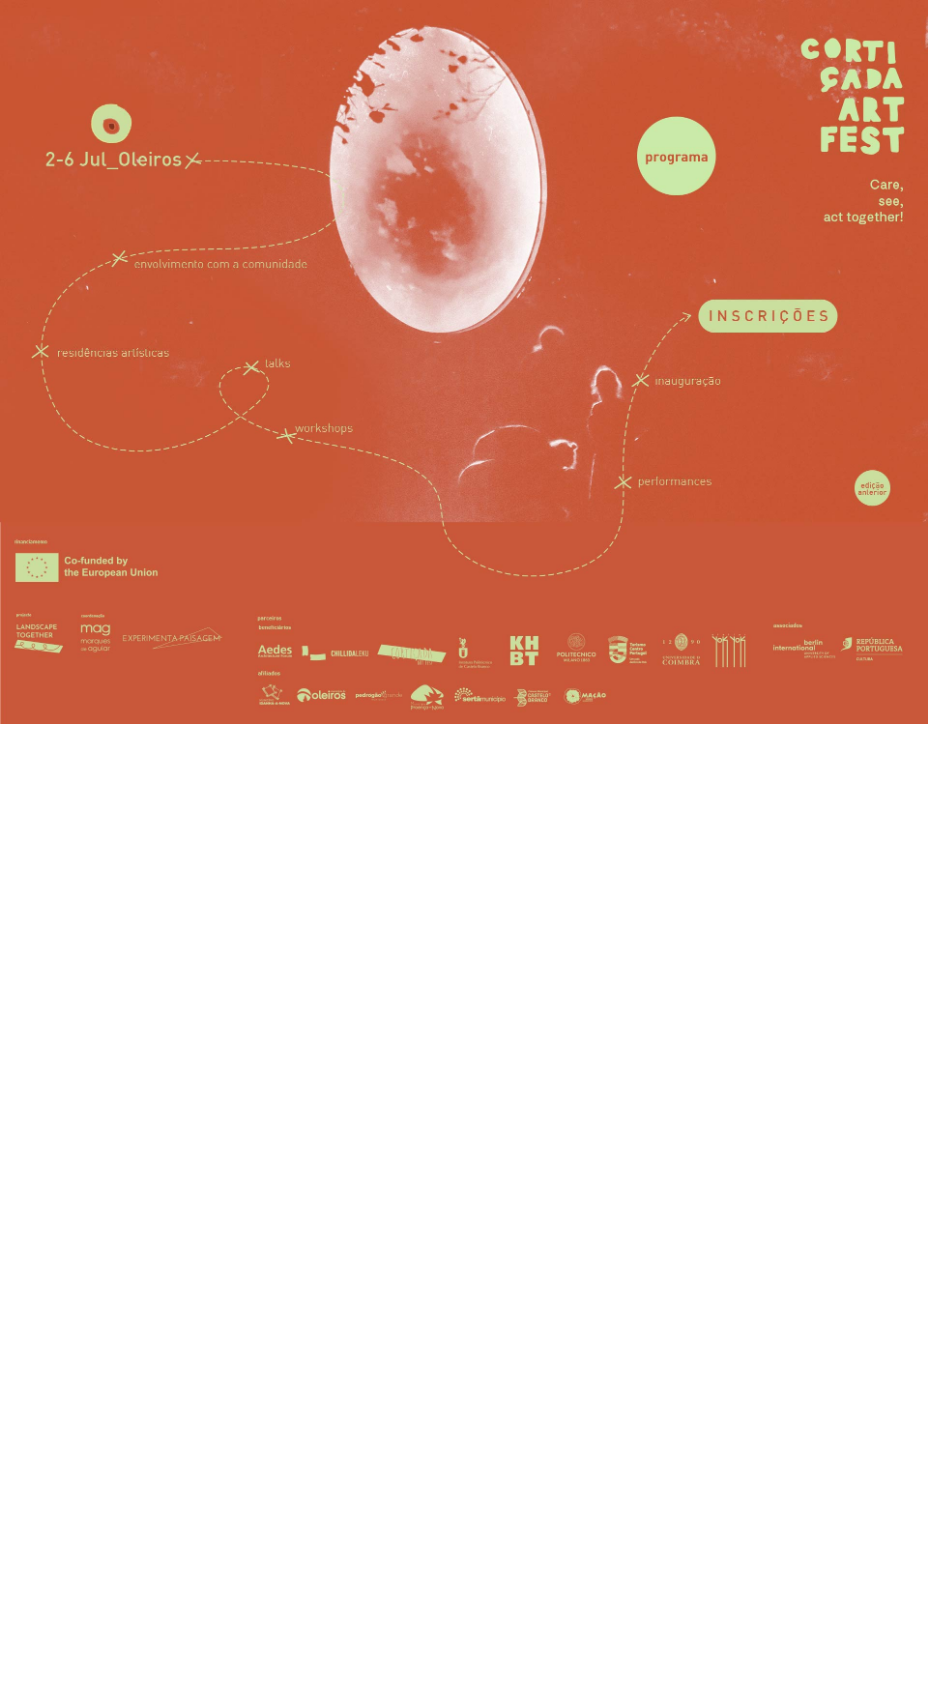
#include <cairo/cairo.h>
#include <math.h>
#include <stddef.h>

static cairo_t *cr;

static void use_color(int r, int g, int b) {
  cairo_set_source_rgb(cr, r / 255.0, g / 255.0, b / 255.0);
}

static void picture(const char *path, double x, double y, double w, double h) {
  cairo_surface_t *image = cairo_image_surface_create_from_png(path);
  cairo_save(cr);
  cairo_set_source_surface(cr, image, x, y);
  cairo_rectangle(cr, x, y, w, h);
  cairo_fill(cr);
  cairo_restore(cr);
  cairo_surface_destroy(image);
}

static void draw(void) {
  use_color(255, 255, 255);
  cairo_paint(cr);
  picture("img_01.png", 0, 0, 928, 724);
}

int main(void) {
  cairo_surface_t *surface = cairo_image_surface_create(CAIRO_FORMAT_RGB24, 928, 1694);
  cr = cairo_create(surface);
  cairo_font_options_t *options = cairo_font_options_create();
  cairo_font_options_set_hint_metrics(options, CAIRO_HINT_METRICS_OFF);
  cairo_font_options_set_hint_style(options, CAIRO_HINT_STYLE_NONE);
  cairo_set_font_options(cr, options);
  cairo_set_miter_limit(cr, 4);
  draw();
  cairo_surface_write_to_png(surface, "out.png");
  cairo_font_options_destroy(options);
  cairo_destroy(cr);
  cairo_surface_destroy(surface);
  return 0;
}
